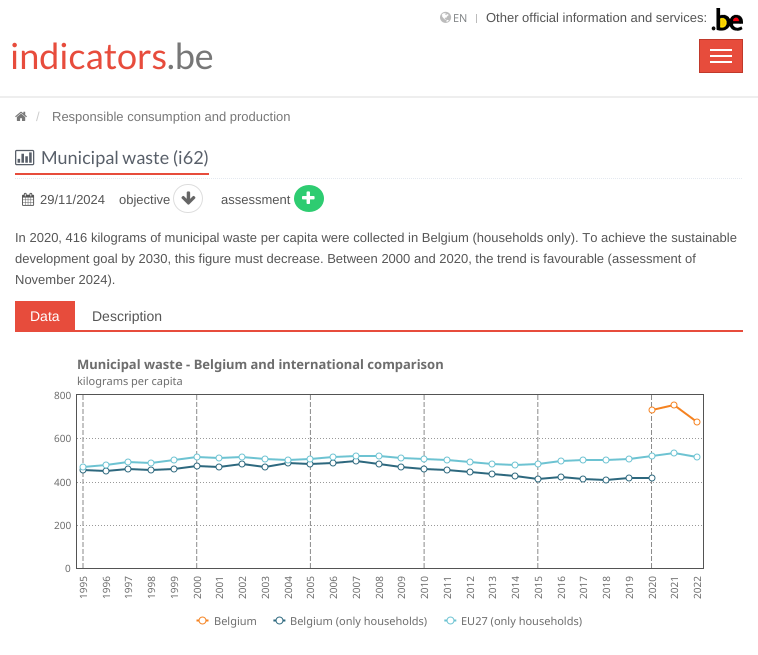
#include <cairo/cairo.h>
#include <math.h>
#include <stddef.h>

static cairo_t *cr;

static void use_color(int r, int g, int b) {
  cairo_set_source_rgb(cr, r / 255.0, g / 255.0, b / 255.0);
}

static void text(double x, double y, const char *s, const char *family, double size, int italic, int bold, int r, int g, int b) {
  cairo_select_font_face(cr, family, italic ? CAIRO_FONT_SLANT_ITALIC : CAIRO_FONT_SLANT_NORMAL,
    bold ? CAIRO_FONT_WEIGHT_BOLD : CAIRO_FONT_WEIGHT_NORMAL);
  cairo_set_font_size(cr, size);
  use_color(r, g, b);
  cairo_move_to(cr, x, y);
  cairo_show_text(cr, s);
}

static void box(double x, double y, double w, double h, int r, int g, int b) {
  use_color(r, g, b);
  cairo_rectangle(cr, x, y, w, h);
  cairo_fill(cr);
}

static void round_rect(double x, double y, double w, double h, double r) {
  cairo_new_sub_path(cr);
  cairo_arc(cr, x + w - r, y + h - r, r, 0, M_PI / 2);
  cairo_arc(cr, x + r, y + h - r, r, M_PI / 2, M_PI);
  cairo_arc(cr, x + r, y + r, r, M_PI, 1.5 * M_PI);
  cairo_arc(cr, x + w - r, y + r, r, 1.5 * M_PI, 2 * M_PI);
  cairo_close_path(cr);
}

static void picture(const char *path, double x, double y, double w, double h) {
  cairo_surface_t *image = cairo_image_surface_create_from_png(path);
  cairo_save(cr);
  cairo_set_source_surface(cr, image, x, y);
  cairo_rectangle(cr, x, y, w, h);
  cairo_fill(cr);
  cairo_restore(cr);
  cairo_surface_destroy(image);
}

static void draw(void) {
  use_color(255, 255, 255);
  cairo_paint(cr);
  picture("img_01.png", 440, 11, 12, 12);
  box(476, 14, 1, 9, 187, 187, 187);
  picture("img_02.png", 711, 8, 32, 23);
  box(0, 96, 758, 2, 238, 238, 238);
  use_color(231, 76, 60);
  cairo_rectangle(cr, 699.5, 39.5, 43, 33);
  cairo_fill_preserve(cr);
  use_color(192, 57, 43);
  cairo_set_line_width(cr, 1);
  cairo_stroke(cr);
  box(710, 49, 22, 2, 255, 255, 255);
  box(710, 55, 22, 2, 255, 255, 255);
  box(710, 61, 22, 2, 255, 255, 255);
  picture("img_03.png", 15, 111, 12, 10);
  cairo_new_path(cr);
  cairo_move_to(cr, 15, 178.5);
  cairo_line_to(cr, 743, 178.5);
  use_color(228, 233, 240);
  cairo_set_dash(cr, (double[]){1, 1}, 2, 0);
  cairo_stroke(cr);
  box(15, 173, 194, 2, 231, 76, 60);
  picture("img_04.png", 15, 149, 20, 17);
  picture("img_05.png", 22, 192, 13, 14);
  round_rect(173.5, 184.5, 29, 28, 14);
  use_color(221, 221, 221);
  cairo_set_dash(cr, NULL, 0, 0);
  cairo_stroke(cr);
  picture("img_06.png", 181, 191, 15, 14);
  use_color(46, 204, 113);
  cairo_new_path(cr);
  cairo_move_to(cr, 309, 185);
  cairo_curve_to(cr, 317.5, 185, 324, 191, 324, 198.5);
  cairo_curve_to(cr, 324, 206, 317.5, 212, 309, 212);
  cairo_curve_to(cr, 300.5, 212, 294, 206, 294, 198.5);
  cairo_curve_to(cr, 294, 191, 300.5, 185, 309, 185);
  cairo_close_path(cr);
  cairo_fill(cr);
  picture("img_07.png", 302, 191, 13, 13);
  box(15, 330, 728, 2, 231, 76, 60);
  box(15, 301, 60, 29, 231, 76, 60);
  picture("img_08.png", 76, 394, 628, 231);
  text(453, 22, "EN", "Open Sans", 11, 0, 0, 124, 128, 130);
  text(486, 22, "Other official information and services:", "Liberation Sans", 13, 0, 0, 85, 85, 85);
  text(10, 69, "indicators", "Lato", 36, 0, 0, 231, 76, 60);
  text(167, 69, ".be", "Lato", 36, 0, 0, 119, 119, 119);
  text(36, 121, "/", "Liberation Sans", 13, 0, 0, 204, 204, 204);
  text(52, 121, "Responsible consumption and production", "Liberation Sans", 13, 0, 0, 119, 119, 119);
  text(41, 164, "Municipal waste (i62)", "Lato", 18, 0, 0, 88, 95, 105);
  text(40, 204, "29/11/2024", "Liberation Sans", 13, 0, 0, 85, 85, 85);
  text(119, 204, "objective", "Liberation Sans", 13, 0, 0, 85, 85, 85);
  text(221, 204, "assessment", "Liberation Sans", 13, 0, 0, 85, 85, 85);
  text(15, 242, "In 2020, 416 kilograms of municipal waste per capita were collected in Belgium (households only). To achieve the sustainable", "Liberation Sans", 13, 0, 0, 85, 85, 85);
  text(15, 263, "development goal by 2030, this figure must decrease. Between 2000 and 2020, the trend is favourable (assessment of", "Liberation Sans", 13, 0, 0, 85, 85, 85);
  text(15, 284, "November 2024).", "Liberation Sans", 13, 0, 0, 85, 85, 85);
  text(30, 321, "Data", "Liberation Sans", 14, 0, 0, 255, 255, 255);
  text(92, 321, "Description", "Liberation Sans", 14, 0, 0, 85, 85, 85);
  text(77, 369, "Municipal waste - Belgium and international comparison", "Noto Sans", 13, 0, 1, 109, 109, 109);
  text(77, 385, "kilograms per capita", "Noto Sans", 11, 0, 0, 109, 109, 109);
  text(54, 399, "800", "Noto Sans", 10, 0, 0, 109, 109, 109);
  text(54, 442, "600", "Noto Sans", 10, 0, 0, 109, 109, 109);
  text(54, 486, "400", "Noto Sans", 10, 0, 0, 109, 109, 109);
  text(54, 529, "200", "Noto Sans", 10, 0, 0, 109, 109, 109);
  text(65, 572, "0", "Noto Sans", 10, 0, 0, 109, 109, 109);
  cairo_save(cr);
  cairo_translate(cr, 87, 599);
  cairo_rotate(cr, -90 * M_PI / 180);
  text(0, 0, "1995", "Noto Sans", 10, 0, 0, 109, 109, 109);
  cairo_restore(cr);
  cairo_save(cr);
  cairo_translate(cr, 110, 599);
  cairo_rotate(cr, -90 * M_PI / 180);
  text(0, 0, "1996", "Noto Sans", 10, 0, 0, 109, 109, 109);
  cairo_restore(cr);
  cairo_save(cr);
  cairo_translate(cr, 132, 599);
  cairo_rotate(cr, -90 * M_PI / 180);
  text(0, 0, "1997", "Noto Sans", 10, 0, 0, 109, 109, 109);
  cairo_restore(cr);
  cairo_save(cr);
  cairo_translate(cr, 155, 599);
  cairo_rotate(cr, -90 * M_PI / 180);
  text(0, 0, "1998", "Noto Sans", 10, 0, 0, 109, 109, 109);
  cairo_restore(cr);
  cairo_save(cr);
  cairo_translate(cr, 178, 599);
  cairo_rotate(cr, -90 * M_PI / 180);
  text(0, 0, "1999", "Noto Sans", 10, 0, 0, 109, 109, 109);
  cairo_restore(cr);
  cairo_save(cr);
  cairo_translate(cr, 201, 599);
  cairo_rotate(cr, -90 * M_PI / 180);
  text(0, 0, "2000", "Noto Sans", 10, 0, 0, 109, 109, 109);
  cairo_restore(cr);
  cairo_save(cr);
  cairo_translate(cr, 223, 599);
  cairo_rotate(cr, -90 * M_PI / 180);
  text(0, 0, "2001", "Noto Sans", 10, 0, 0, 109, 109, 109);
  cairo_restore(cr);
  cairo_save(cr);
  cairo_translate(cr, 246, 599);
  cairo_rotate(cr, -90 * M_PI / 180);
  text(0, 0, "2002", "Noto Sans", 10, 0, 0, 109, 109, 109);
  cairo_restore(cr);
  cairo_save(cr);
  cairo_translate(cr, 269, 599);
  cairo_rotate(cr, -90 * M_PI / 180);
  text(0, 0, "2003", "Noto Sans", 10, 0, 0, 109, 109, 109);
  cairo_restore(cr);
  cairo_save(cr);
  cairo_translate(cr, 292, 599);
  cairo_rotate(cr, -90 * M_PI / 180);
  text(0, 0, "2004", "Noto Sans", 10, 0, 0, 109, 109, 109);
  cairo_restore(cr);
  cairo_save(cr);
  cairo_translate(cr, 314, 599);
  cairo_rotate(cr, -90 * M_PI / 180);
  text(0, 0, "2005", "Noto Sans", 10, 0, 0, 109, 109, 109);
  cairo_restore(cr);
  cairo_save(cr);
  cairo_translate(cr, 337, 599);
  cairo_rotate(cr, -90 * M_PI / 180);
  text(0, 0, "2006", "Noto Sans", 10, 0, 0, 109, 109, 109);
  cairo_restore(cr);
  cairo_save(cr);
  cairo_translate(cr, 360, 599);
  cairo_rotate(cr, -90 * M_PI / 180);
  text(0, 0, "2007", "Noto Sans", 10, 0, 0, 109, 109, 109);
  cairo_restore(cr);
  cairo_save(cr);
  cairo_translate(cr, 383, 599);
  cairo_rotate(cr, -90 * M_PI / 180);
  text(0, 0, "2008", "Noto Sans", 10, 0, 0, 109, 109, 109);
  cairo_restore(cr);
  cairo_save(cr);
  cairo_translate(cr, 405, 599);
  cairo_rotate(cr, -90 * M_PI / 180);
  text(0, 0, "2009", "Noto Sans", 10, 0, 0, 109, 109, 109);
  cairo_restore(cr);
  cairo_save(cr);
  cairo_translate(cr, 428, 599);
  cairo_rotate(cr, -90 * M_PI / 180);
  text(0, 0, "2010", "Noto Sans", 10, 0, 0, 109, 109, 109);
  cairo_restore(cr);
  cairo_save(cr);
  cairo_translate(cr, 451, 599);
  cairo_rotate(cr, -90 * M_PI / 180);
  text(0, 0, "2011", "Noto Sans", 10, 0, 0, 109, 109, 109);
  cairo_restore(cr);
  cairo_save(cr);
  cairo_translate(cr, 474, 599);
  cairo_rotate(cr, -90 * M_PI / 180);
  text(0, 0, "2012", "Noto Sans", 10, 0, 0, 109, 109, 109);
  cairo_restore(cr);
  cairo_save(cr);
  cairo_translate(cr, 496, 599);
  cairo_rotate(cr, -90 * M_PI / 180);
  text(0, 0, "2013", "Noto Sans", 10, 0, 0, 109, 109, 109);
  cairo_restore(cr);
  cairo_save(cr);
  cairo_translate(cr, 519, 599);
  cairo_rotate(cr, -90 * M_PI / 180);
  text(0, 0, "2014", "Noto Sans", 10, 0, 0, 109, 109, 109);
  cairo_restore(cr);
  cairo_save(cr);
  cairo_translate(cr, 542, 599);
  cairo_rotate(cr, -90 * M_PI / 180);
  text(0, 0, "2015", "Noto Sans", 10, 0, 0, 109, 109, 109);
  cairo_restore(cr);
  cairo_save(cr);
  cairo_translate(cr, 565, 599);
  cairo_rotate(cr, -90 * M_PI / 180);
  text(0, 0, "2016", "Noto Sans", 10, 0, 0, 109, 109, 109);
  cairo_restore(cr);
  cairo_save(cr);
  cairo_translate(cr, 587, 599);
  cairo_rotate(cr, -90 * M_PI / 180);
  text(0, 0, "2017", "Noto Sans", 10, 0, 0, 109, 109, 109);
  cairo_restore(cr);
  cairo_save(cr);
  cairo_translate(cr, 610, 599);
  cairo_rotate(cr, -90 * M_PI / 180);
  text(0, 0, "2018", "Noto Sans", 10, 0, 0, 109, 109, 109);
  cairo_restore(cr);
  cairo_save(cr);
  cairo_translate(cr, 633, 599);
  cairo_rotate(cr, -90 * M_PI / 180);
  text(0, 0, "2019", "Noto Sans", 10, 0, 0, 109, 109, 109);
  cairo_restore(cr);
  cairo_save(cr);
  cairo_translate(cr, 656, 599);
  cairo_rotate(cr, -90 * M_PI / 180);
  text(0, 0, "2020", "Noto Sans", 10, 0, 0, 109, 109, 109);
  cairo_restore(cr);
  cairo_save(cr);
  cairo_translate(cr, 678, 599);
  cairo_rotate(cr, -90 * M_PI / 180);
  text(0, 0, "2021", "Noto Sans", 10, 0, 0, 109, 109, 109);
  cairo_restore(cr);
  cairo_save(cr);
  cairo_translate(cr, 701, 599);
  cairo_rotate(cr, -90 * M_PI / 180);
  text(0, 0, "2022", "Noto Sans", 10, 0, 0, 109, 109, 109);
  cairo_restore(cr);
  text(214, 625, "Belgium", "Noto Sans", 11, 0, 0, 109, 109, 109);
  text(290, 625, "Belgium (only households)", "Noto Sans", 11, 0, 0, 109, 109, 109);
  text(461, 625, "EU27 (only households)", "Noto Sans", 11, 0, 0, 109, 109, 109);
}

int main(void) {
  cairo_surface_t *surface = cairo_image_surface_create(CAIRO_FORMAT_RGB24, 758, 655);
  cr = cairo_create(surface);
  cairo_font_options_t *options = cairo_font_options_create();
  cairo_font_options_set_hint_metrics(options, CAIRO_HINT_METRICS_OFF);
  cairo_font_options_set_hint_style(options, CAIRO_HINT_STYLE_NONE);
  cairo_set_font_options(cr, options);
  cairo_set_miter_limit(cr, 4);
  draw();
  cairo_surface_write_to_png(surface, "out.png");
  cairo_font_options_destroy(options);
  cairo_destroy(cr);
  cairo_surface_destroy(surface);
  return 0;
}
